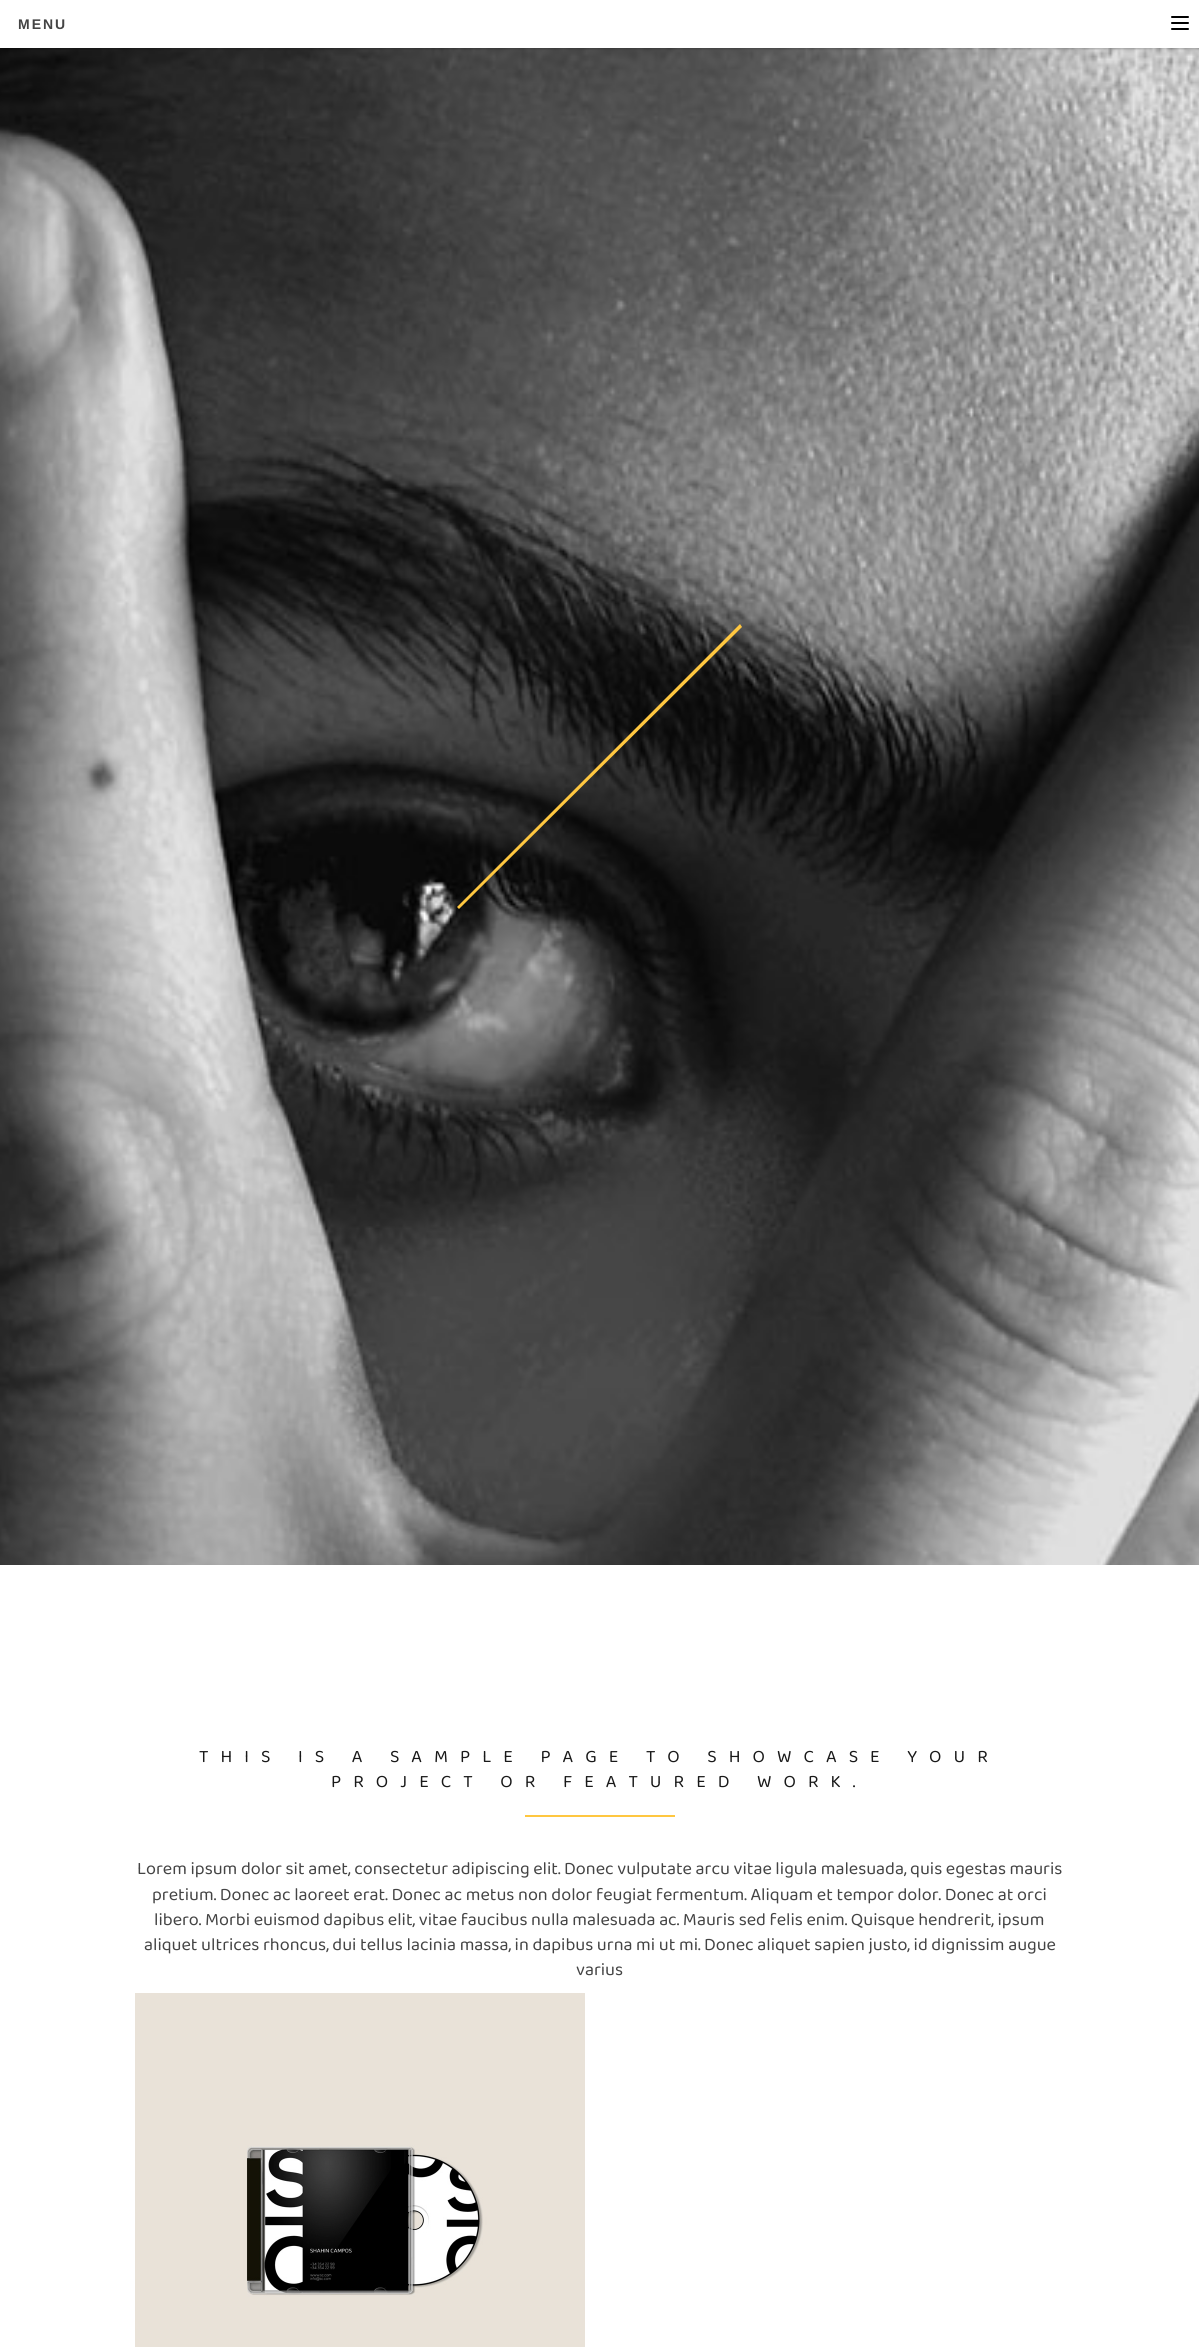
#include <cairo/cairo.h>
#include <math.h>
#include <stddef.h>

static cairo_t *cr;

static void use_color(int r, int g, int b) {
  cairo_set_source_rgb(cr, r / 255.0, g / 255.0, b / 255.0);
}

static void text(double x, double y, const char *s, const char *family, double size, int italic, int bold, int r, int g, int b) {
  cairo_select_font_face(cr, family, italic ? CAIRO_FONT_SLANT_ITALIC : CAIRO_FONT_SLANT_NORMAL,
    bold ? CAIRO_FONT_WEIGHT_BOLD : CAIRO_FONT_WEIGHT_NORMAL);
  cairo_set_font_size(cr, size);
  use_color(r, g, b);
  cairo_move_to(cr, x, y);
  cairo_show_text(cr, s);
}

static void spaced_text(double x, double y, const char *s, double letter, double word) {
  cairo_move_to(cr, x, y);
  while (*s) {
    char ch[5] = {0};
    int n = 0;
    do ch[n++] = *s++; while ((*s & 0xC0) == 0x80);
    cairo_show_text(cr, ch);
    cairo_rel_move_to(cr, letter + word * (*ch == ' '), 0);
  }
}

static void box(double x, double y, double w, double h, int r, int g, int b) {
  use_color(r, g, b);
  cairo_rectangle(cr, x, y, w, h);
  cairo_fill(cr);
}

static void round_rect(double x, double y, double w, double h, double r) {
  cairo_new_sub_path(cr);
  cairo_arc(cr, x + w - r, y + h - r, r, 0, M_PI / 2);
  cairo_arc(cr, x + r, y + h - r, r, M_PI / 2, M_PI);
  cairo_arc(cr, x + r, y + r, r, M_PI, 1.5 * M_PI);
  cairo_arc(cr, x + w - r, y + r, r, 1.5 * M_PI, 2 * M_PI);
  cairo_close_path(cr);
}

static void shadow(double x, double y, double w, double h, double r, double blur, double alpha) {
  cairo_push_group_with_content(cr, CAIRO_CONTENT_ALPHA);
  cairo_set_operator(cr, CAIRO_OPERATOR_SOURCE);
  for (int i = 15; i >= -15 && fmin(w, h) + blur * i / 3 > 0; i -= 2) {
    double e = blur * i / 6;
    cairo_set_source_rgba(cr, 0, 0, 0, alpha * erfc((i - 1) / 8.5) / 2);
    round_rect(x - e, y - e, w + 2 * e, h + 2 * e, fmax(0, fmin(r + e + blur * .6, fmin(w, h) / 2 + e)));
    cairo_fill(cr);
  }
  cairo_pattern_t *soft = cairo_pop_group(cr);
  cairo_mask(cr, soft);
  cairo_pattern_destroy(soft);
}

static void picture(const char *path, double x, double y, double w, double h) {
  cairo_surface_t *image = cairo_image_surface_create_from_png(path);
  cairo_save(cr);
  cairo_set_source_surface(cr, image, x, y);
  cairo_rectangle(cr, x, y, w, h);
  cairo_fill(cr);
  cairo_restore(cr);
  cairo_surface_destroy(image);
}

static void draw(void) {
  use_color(255, 255, 255);
  cairo_paint(cr);
  picture("img_01.png", 0, 48, 1199, 1517);
  use_color(0, 0, 0);
  shadow(1, 1, 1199, 48, 0, 1, 0.2);
  box(0, 0, 1199, 48, 255, 255, 255);
  use_color(0, 0, 0);
  round_rect(1171, 16, 18, 2, 1);
  cairo_fill(cr);
  round_rect(1171, 22, 18, 2, 1);
  cairo_fill(cr);
  round_rect(1171, 28, 18, 2, 1);
  cairo_fill(cr);
  use_color(255, 199, 64);
  cairo_new_path(cr);
  cairo_move_to(cr, 457, 907);
  cairo_line_to(cr, 740, 624);
  cairo_line_to(cr, 742, 627);
  cairo_line_to(cr, 459, 909);
  cairo_close_path(cr);
  cairo_fill(cr);
  box(525, 1815, 150, 2, 255, 199, 64);
  picture("img_02.png", 135, 1993, 450, 354);
  cairo_select_font_face(cr, "Liberation Sans", CAIRO_FONT_SLANT_NORMAL, CAIRO_FONT_WEIGHT_BOLD);
  cairo_set_font_size(cr, 14);
  use_color(68, 68, 68);
  spaced_text(18, 29, "MENU", 2, 0);
  cairo_select_font_face(cr, "Baloo 2", CAIRO_FONT_SLANT_NORMAL, CAIRO_FONT_WEIGHT_NORMAL);
  cairo_set_font_size(cr, 18);
  use_color(25, 25, 25);
  spaced_text(199, 1762, "THIS IS A SAMPLE PAGE TO SHOWCASE YOUR", 12, 0);
  spaced_text(331, 1787, "PROJECT OR FEATURED WORK.", 12, 0);
  text(137, 1874, "Lorem ipsum dolor sit amet, consectetur adipiscing elit. Donec vulputate arcu vitae ligula malesuada, quis egestas mauris", "Baloo 2", 18, 0, 0, 68, 68, 68);
  text(152, 1900, "pretium. Donec ac laoreet erat. Donec ac metus non dolor feugiat fermentum. Aliquam et tempor dolor. Donec at orci", "Baloo 2", 18, 0, 0, 68, 68, 68);
  text(154, 1925, "libero. Morbi euismod dapibus elit, vitae faucibus nulla malesuada ac. Mauris sed felis enim. Quisque hendrerit, ipsum", "Baloo 2", 18, 0, 0, 68, 68, 68);
  text(144, 1950, "aliquet ultrices rhoncus, dui tellus lacinia massa, in dapibus urna mi ut mi. Donec aliquet sapien justo, id dignissim augue", "Baloo 2", 18, 0, 0, 68, 68, 68);
  text(576, 1975, "varius", "Baloo 2", 18, 0, 0, 68, 68, 68);
}

int main(void) {
  cairo_surface_t *surface = cairo_image_surface_create(CAIRO_FORMAT_RGB24, 1199, 2347);
  cr = cairo_create(surface);
  cairo_font_options_t *options = cairo_font_options_create();
  cairo_font_options_set_hint_metrics(options, CAIRO_HINT_METRICS_OFF);
  cairo_font_options_set_hint_style(options, CAIRO_HINT_STYLE_NONE);
  cairo_set_font_options(cr, options);
  cairo_set_miter_limit(cr, 4);
  draw();
  cairo_surface_write_to_png(surface, "out.png");
  cairo_font_options_destroy(options);
  cairo_destroy(cr);
  cairo_surface_destroy(surface);
  return 0;
}
